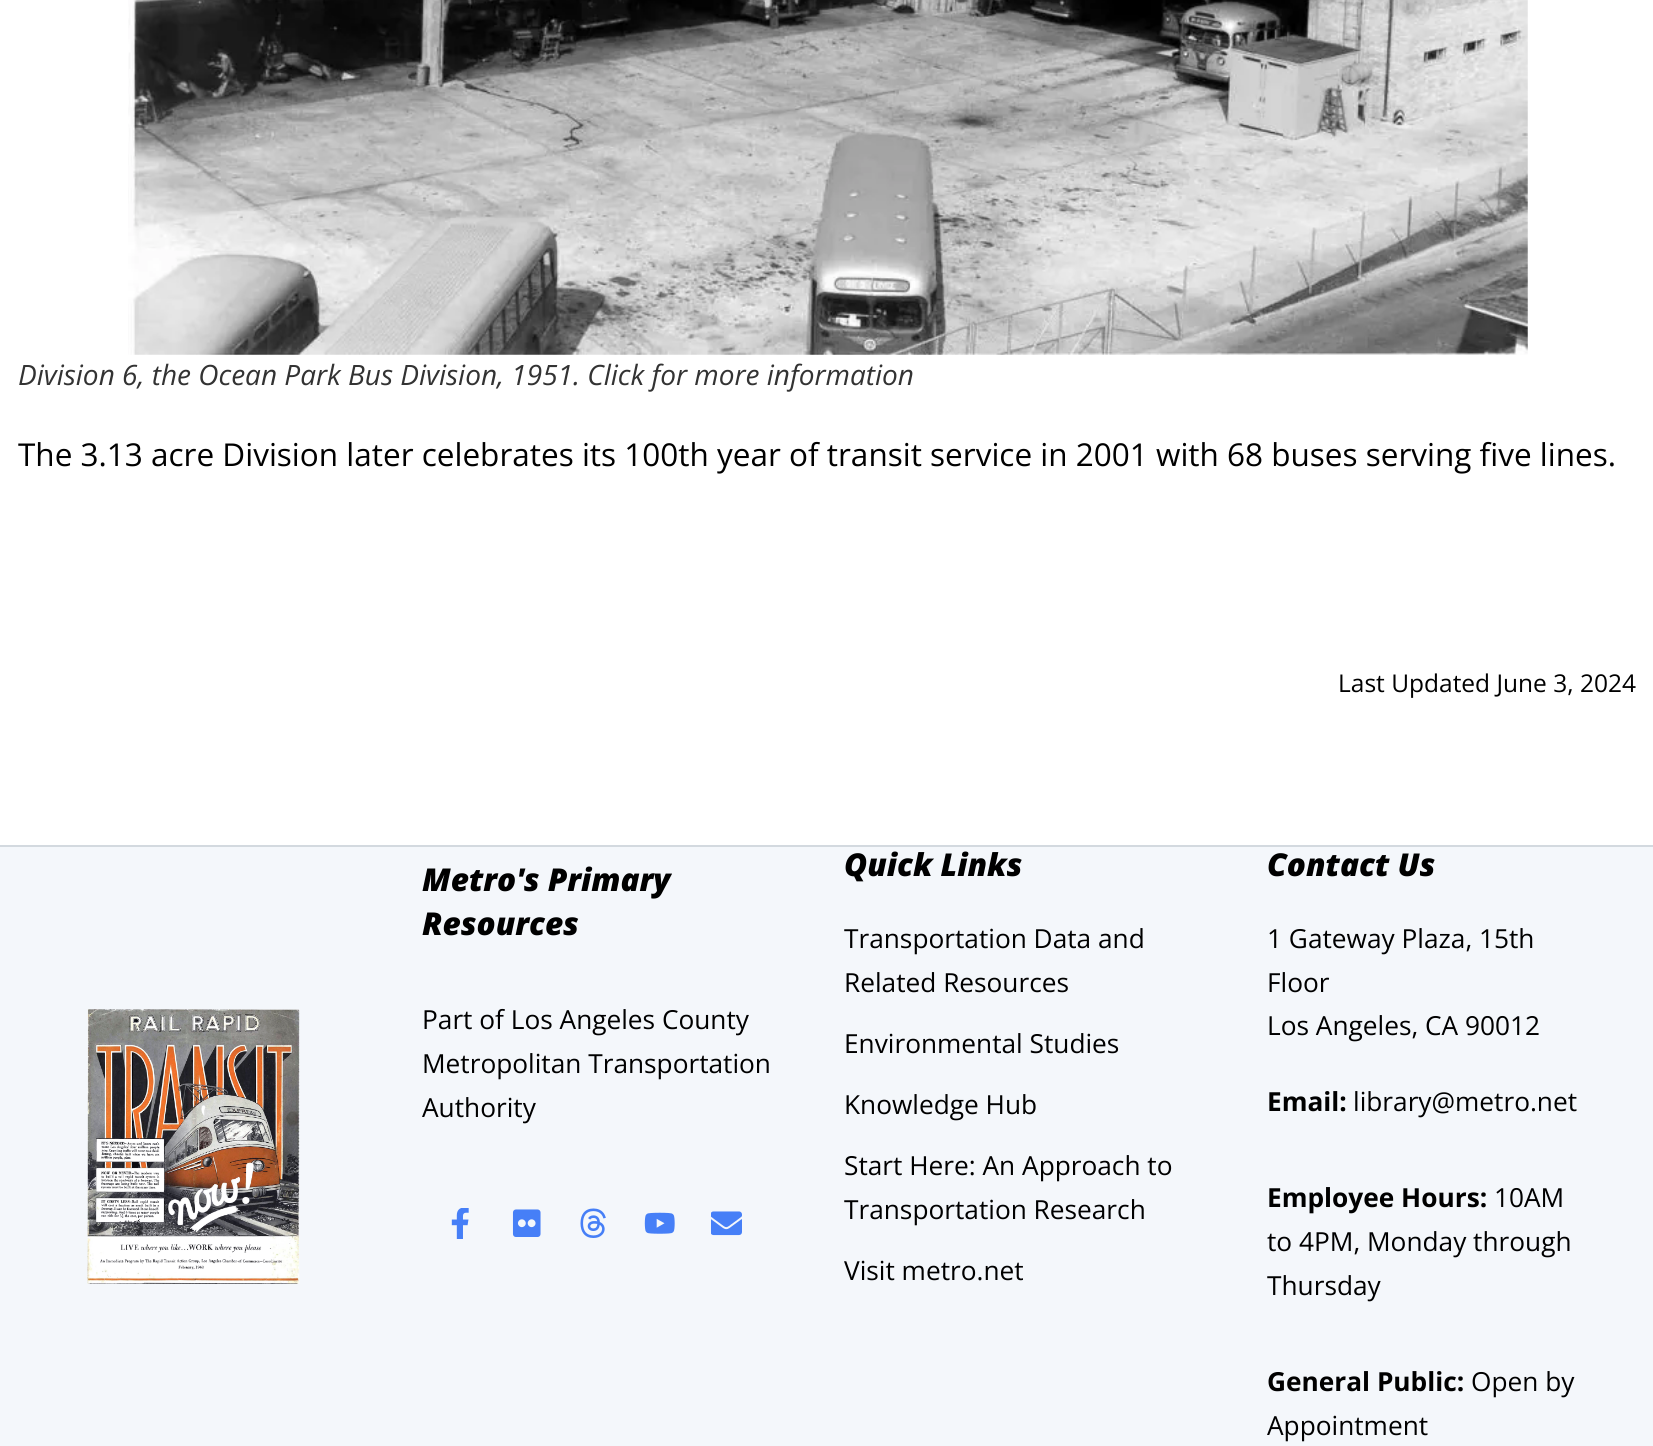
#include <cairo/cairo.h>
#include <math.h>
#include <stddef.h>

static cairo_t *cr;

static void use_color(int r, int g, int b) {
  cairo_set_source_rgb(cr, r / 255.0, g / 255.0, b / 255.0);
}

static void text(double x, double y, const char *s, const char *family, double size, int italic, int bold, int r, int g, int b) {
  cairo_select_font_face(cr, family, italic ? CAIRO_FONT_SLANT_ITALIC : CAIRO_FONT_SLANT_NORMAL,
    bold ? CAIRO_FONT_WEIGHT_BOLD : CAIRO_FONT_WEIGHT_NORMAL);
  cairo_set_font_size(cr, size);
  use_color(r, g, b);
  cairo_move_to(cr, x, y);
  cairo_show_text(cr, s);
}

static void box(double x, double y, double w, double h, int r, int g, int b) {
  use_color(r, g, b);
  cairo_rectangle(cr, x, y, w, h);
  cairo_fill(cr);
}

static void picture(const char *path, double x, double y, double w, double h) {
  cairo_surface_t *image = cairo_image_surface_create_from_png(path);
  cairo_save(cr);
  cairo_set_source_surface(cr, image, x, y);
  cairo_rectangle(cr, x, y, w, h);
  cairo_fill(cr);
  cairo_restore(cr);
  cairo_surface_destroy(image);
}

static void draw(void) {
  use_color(255, 255, 255);
  cairo_paint(cr);
  picture("img_01.png", 128, 0, 1400, 355);
  box(0, 847, 1653, 599, 244, 247, 251);
  box(0, 845, 1653, 2, 211, 217, 223);
  picture("img_02.png", 87, 1009, 213, 275);
  picture("img_03.png", 451, 1208, 18, 31);
  picture("img_04.png", 512, 1209, 29, 28);
  picture("img_05.png", 580, 1208, 26, 30);
  picture("img_06.png", 644, 1212, 31, 22);
  picture("img_07.png", 711, 1211, 31, 25);
  text(18, 385, "Division 6, the Ocean Park Bus Division, 1951. Click for more information", "Open Sans", 28, 1, 0, 51, 51, 51);
  text(18, 466, "The 3.13 acre Division later celebrates its 100th year of transit service in 2001 with 68 buses serving five lines.", "Open Sans", 31.5, 0, 0, 0, 0, 0);
  text(1338, 692, "Last Updated June 3, 2024", "Open Sans", 24.5, 0, 0, 0, 0, 0);
  text(422, 891, "Metro's Primary", "Open Sans ExtraBold", 31.5, 1, 0, 0, 0, 0);
  text(422, 935, "Resources", "Open Sans ExtraBold", 31.5, 1, 0, 0, 0, 0);
  text(422, 1029, "Part of Los Angeles County", "Open Sans", 26.25, 0, 0, 0, 0, 0);
  text(422, 1073, "Metropolitan Transportation", "Open Sans", 26.25, 0, 0, 0, 0, 0);
  text(422, 1117, "Authority", "Open Sans", 26.25, 0, 0, 0, 0, 0);
  text(844, 876, "Quick Links", "Open Sans ExtraBold", 31.5, 1, 0, 0, 0, 0);
  text(844, 948, "Transportation Data and", "Open Sans", 26.25, 0, 0, 0, 0, 0);
  text(844, 992, "Related Resources", "Open Sans", 26.25, 0, 0, 0, 0, 0);
  text(844, 1053, "Environmental Studies", "Open Sans", 26.25, 0, 0, 0, 0, 0);
  text(844, 1114, "Knowledge Hub", "Open Sans", 26.25, 0, 0, 0, 0, 0);
  text(844, 1175, "Start Here: An Approach to", "Open Sans", 26.25, 0, 0, 0, 0, 0);
  text(844, 1219, "Transportation Research", "Open Sans", 26.25, 0, 0, 0, 0, 0);
  text(844, 1280, "Visit metro.net", "Open Sans", 26.25, 0, 0, 0, 0, 0);
  text(1267, 876, "Contact Us", "Open Sans ExtraBold", 31.5, 1, 0, 0, 0, 0);
  text(1267, 948, "1 Gateway Plaza, 15th", "Open Sans", 26.25, 0, 0, 0, 0, 0);
  text(1267, 992, "Floor", "Open Sans", 26.25, 0, 0, 0, 0, 0);
  text(1267, 1035, "Los Angeles, CA 90012", "Open Sans", 26.25, 0, 0, 0, 0, 0);
  text(1267, 1111, "Email:", "Open Sans", 26.25, 0, 1, 0, 0, 0);
  text(1353, 1111, "library@metro.net", "Open Sans", 26.25, 0, 0, 0, 0, 0);
  text(1267, 1207, "Employee Hours:", "Open Sans", 26.25, 0, 1, 0, 0, 0);
  text(1494, 1207, "10AM", "Open Sans", 26.25, 0, 0, 0, 0, 0);
  text(1267, 1251, "to 4PM, Monday through", "Open Sans", 26.25, 0, 0, 0, 0, 0);
  text(1267, 1295, "Thursday", "Open Sans", 26.25, 0, 0, 0, 0, 0);
  text(1267, 1391, "General Public:", "Open Sans", 26.25, 0, 1, 0, 0, 0);
  text(1471, 1391, "Open by", "Open Sans", 26.25, 0, 0, 0, 0, 0);
  text(1267, 1435, "Appointment", "Open Sans", 26.25, 0, 0, 0, 0, 0);
}

int main(void) {
  cairo_surface_t *surface = cairo_image_surface_create(CAIRO_FORMAT_RGB24, 1653, 1446);
  cr = cairo_create(surface);
  cairo_font_options_t *options = cairo_font_options_create();
  cairo_font_options_set_hint_metrics(options, CAIRO_HINT_METRICS_OFF);
  cairo_font_options_set_hint_style(options, CAIRO_HINT_STYLE_NONE);
  cairo_set_font_options(cr, options);
  cairo_set_miter_limit(cr, 4);
  draw();
  cairo_surface_write_to_png(surface, "out.png");
  cairo_font_options_destroy(options);
  cairo_destroy(cr);
  cairo_surface_destroy(surface);
  return 0;
}
